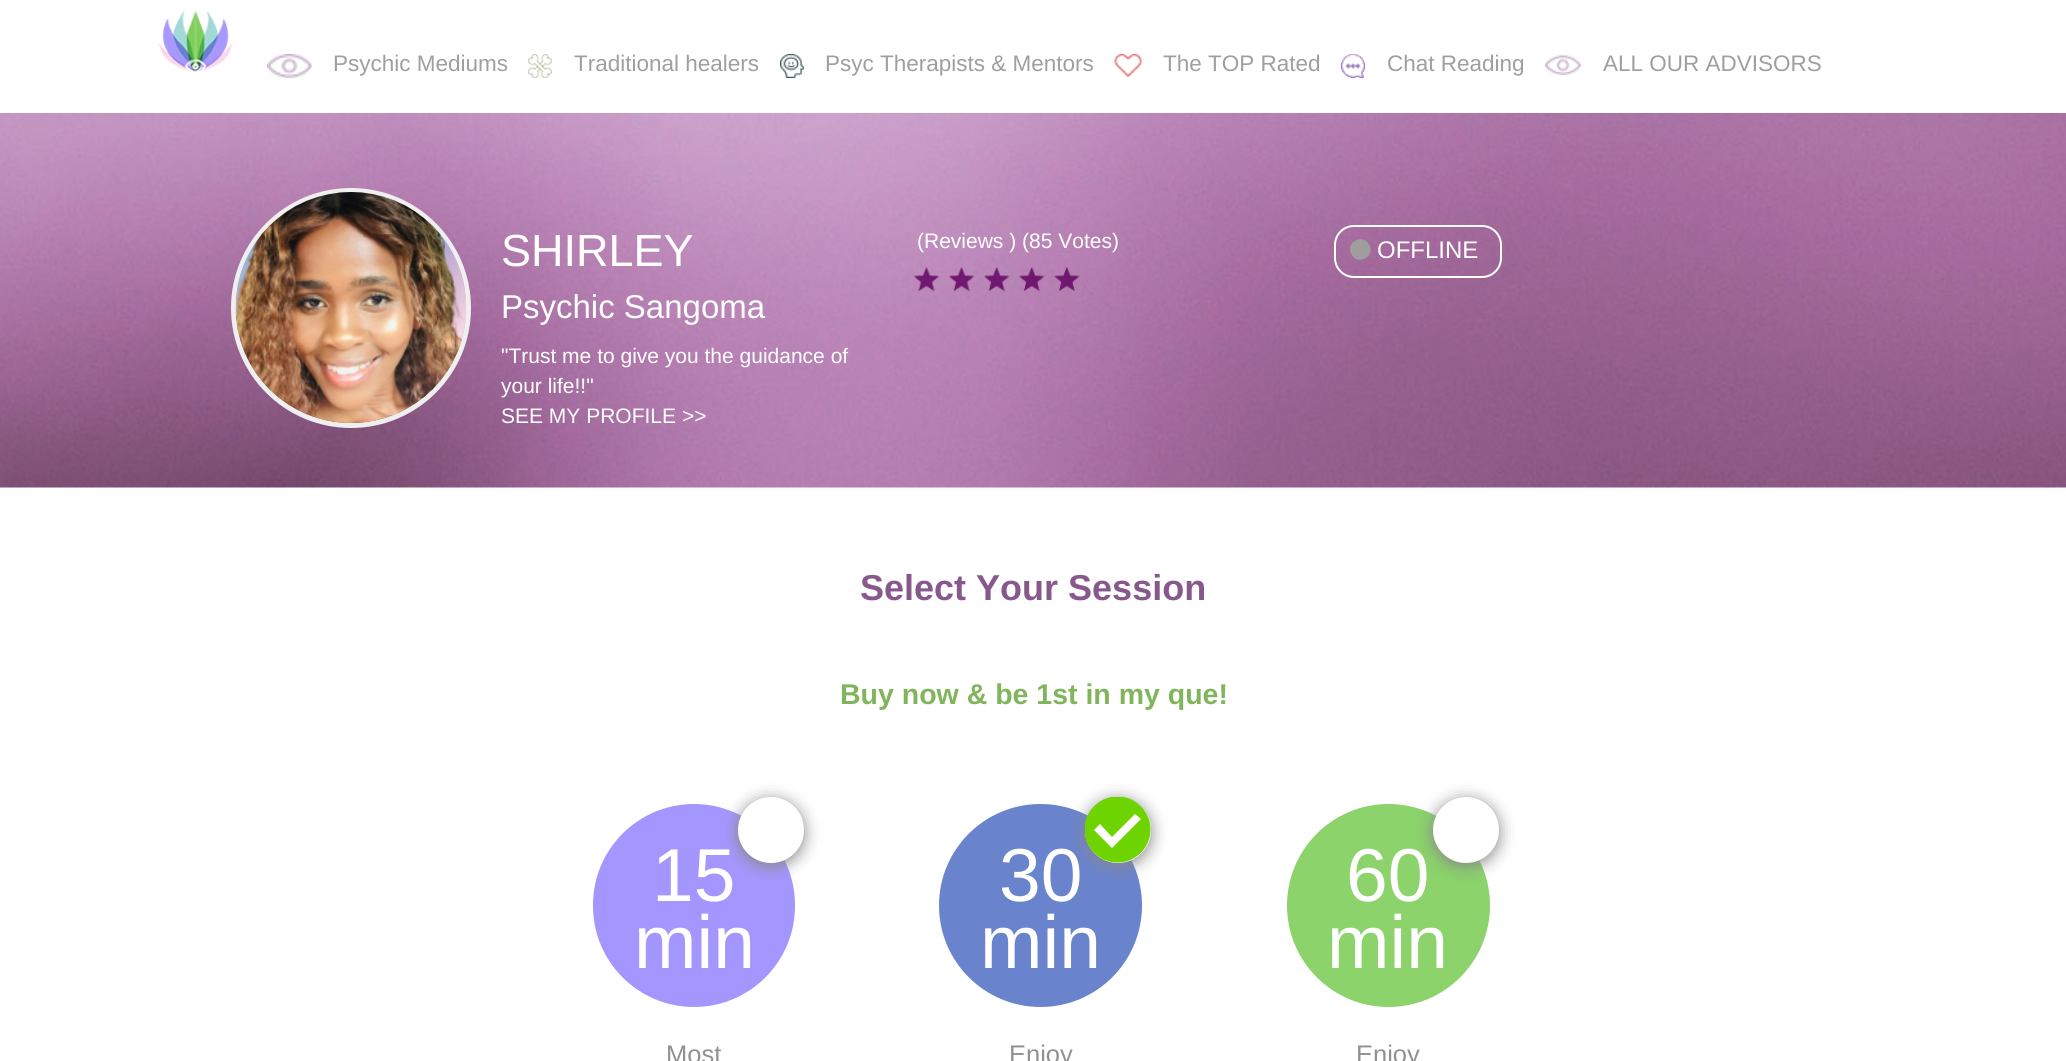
#include <cairo/cairo.h>
#include <math.h>
#include <stddef.h>

static cairo_t *cr;

static void use_color(int r, int g, int b) {
  cairo_set_source_rgb(cr, r / 255.0, g / 255.0, b / 255.0);
}

static void text(double x, double y, const char *s, const char *family, double size, int italic, int bold, int r, int g, int b) {
  cairo_select_font_face(cr, family, italic ? CAIRO_FONT_SLANT_ITALIC : CAIRO_FONT_SLANT_NORMAL,
    bold ? CAIRO_FONT_WEIGHT_BOLD : CAIRO_FONT_WEIGHT_NORMAL);
  cairo_set_font_size(cr, size);
  use_color(r, g, b);
  cairo_move_to(cr, x, y);
  cairo_show_text(cr, s);
}

static void round_rect(double x, double y, double w, double h, double r) {
  cairo_new_sub_path(cr);
  cairo_arc(cr, x + w - r, y + h - r, r, 0, M_PI / 2);
  cairo_arc(cr, x + r, y + h - r, r, M_PI / 2, M_PI);
  cairo_arc(cr, x + r, y + r, r, M_PI, 1.5 * M_PI);
  cairo_arc(cr, x + w - r, y + r, r, 1.5 * M_PI, 2 * M_PI);
  cairo_close_path(cr);
}

static void shadow(double x, double y, double w, double h, double r, double blur, double alpha) {
  cairo_push_group_with_content(cr, CAIRO_CONTENT_ALPHA);
  cairo_set_operator(cr, CAIRO_OPERATOR_SOURCE);
  for (int i = 15; i >= -15 && fmin(w, h) + blur * i / 3 > 0; i -= 2) {
    double e = blur * i / 6;
    cairo_set_source_rgba(cr, 0, 0, 0, alpha * erfc((i - 1) / 8.5) / 2);
    round_rect(x - e, y - e, w + 2 * e, h + 2 * e, fmax(0, fmin(r + e + blur * .6, fmin(w, h) / 2 + e)));
    cairo_fill(cr);
  }
  cairo_pattern_t *soft = cairo_pop_group(cr);
  cairo_mask(cr, soft);
  cairo_pattern_destroy(soft);
}

static void picture(const char *path, double x, double y, double w, double h) {
  cairo_surface_t *image = cairo_image_surface_create_from_png(path);
  cairo_save(cr);
  cairo_set_source_surface(cr, image, x, y);
  cairo_rectangle(cr, x, y, w, h);
  cairo_fill(cr);
  cairo_restore(cr);
  cairo_surface_destroy(image);
}

static void draw(void) {
  use_color(255, 255, 255);
  cairo_paint(cr);
  picture("img_01.png", 158, 11, 75, 62);
  picture("img_02.png", 267, 54, 45, 24);
  picture("img_03.png", 528, 54, 24, 24);
  picture("img_04.png", 780, 54, 24, 24);
  picture("img_05.png", 1114, 54, 28, 23);
  picture("img_06.png", 1341, 54, 24, 24);
  picture("img_07.png", 1545, 55, 36, 20);
  picture("img_08.png", 0, 113, 2066, 375);
  cairo_arc(cr, 351, 308, 117.5, 0, 2 * M_PI);
  use_color(239, 239, 239);
  cairo_set_line_width(cr, 5);
  cairo_stroke(cr);
  picture("img_09.png", 235, 192, 232, 231);
  picture("img_10.png", 913, 267, 26, 25);
  picture("img_11.png", 949, 267, 26, 25);
  picture("img_12.png", 984, 267, 26, 25);
  picture("img_13.png", 1019, 267, 26, 25);
  picture("img_14.png", 1054, 267, 26, 25);
  round_rect(1335, 226, 166, 51, 19);
  use_color(255, 255, 255);
  cairo_set_line_width(cr, 2);
  cairo_stroke(cr);
  use_color(158, 158, 158);
  cairo_new_path(cr);
  cairo_move_to(cr, 1369, 244.5);
  cairo_curve_to(cr, 1376, 256, 1358, 266.5, 1351.5, 254.5);
  cairo_curve_to(cr, 1344.5, 243, 1362.5, 232.5, 1369, 244.5);
  cairo_close_path(cr);
  cairo_fill(cr);
  use_color(163, 151, 255);
  round_rect(593, 804, 202, 203, 101);
  cairo_fill(cr);
  use_color(136, 136, 136);
  shadow(738, 800, 66, 66, 33, 8, 1);
  use_color(255, 255, 255);
  cairo_arc(cr, 771, 830, 33, 0, 2 * M_PI);
  cairo_fill(cr);
  use_color(106, 131, 205);
  cairo_arc(cr, 1040.5, 905.5, 101.5, 0, 2 * M_PI);
  cairo_fill(cr);
  use_color(136, 136, 136);
  shadow(1085, 800, 66, 66, 33, 8, 1);
  use_color(255, 255, 255);
  cairo_arc(cr, 1118, 830, 33, 0, 2 * M_PI);
  cairo_fill(cr);
  cairo_save(cr);
  cairo_rectangle(cr, 1085, 797, 66, 66);
  cairo_clip(cr);
  use_color(109, 212, 0);
  cairo_arc(cr, 1117.5, 829.5, 33, 0, 2 * M_PI);
  cairo_fill(cr);
  cairo_restore(cr);
  cairo_new_path(cr);
  cairo_move_to(cr, 1135, 814);
  cairo_line_to(cr, 1112, 837);
  cairo_line_to(cr, 1100, 824);
  cairo_line_to(cr, 1094, 830);
  cairo_line_to(cr, 1112, 848);
  cairo_line_to(cr, 1141, 819);
  cairo_close_path(cr);
  cairo_fill(cr);
  use_color(139, 211, 106);
  cairo_arc(cr, 1388.5, 905.5, 101.5, 0, 2 * M_PI);
  cairo_fill(cr);
  use_color(136, 136, 136);
  shadow(1433, 800, 66, 66, 33, 8, 1);
  use_color(255, 255, 255);
  cairo_arc(cr, 1466, 830, 33, 0, 2 * M_PI);
  cairo_fill(cr);
  text(333, 71, "Psychic Mediums", "Liberation Sans", 22.5, 0, 0, 159, 159, 159);
  text(574, 71, "Traditional healers", "Liberation Sans", 22.5, 0, 0, 159, 159, 159);
  text(825, 71, "Psyc Therapists & Mentors", "Liberation Sans", 22.5, 0, 0, 159, 159, 159);
  text(1163, 71, "The TOP Rated", "Liberation Sans", 22.5, 0, 0, 159, 159, 159);
  text(1387, 71, "Chat Reading", "Liberation Sans", 22.5, 0, 0, 159, 159, 159);
  text(1603, 71, "ALL OUR ADVISORS", "Liberation Sans", 22.5, 0, 0, 159, 159, 159);
  text(501, 266, "SHIRLEY", "Liberation Sans", 45, 0, 0, 255, 255, 255);
  text(501, 318, "Psychic Sangoma", "Liberation Sans", 33, 0, 0, 255, 255, 255);
  text(501, 363, "\"Trust me to give you the guidance of", "Liberation Sans", 21, 0, 0, 255, 255, 255);
  text(501, 393, "your life!!\"", "Liberation Sans", 21, 0, 0, 255, 255, 255);
  text(501, 423, "SEE MY PROFILE >>", "Liberation Sans", 21, 0, 0, 255, 255, 255);
  text(917, 248, "(Reviews ) (85 Votes)", "Liberation Sans", 21, 0, 0, 255, 255, 255);
  text(1377, 258, "OFFLINE", "Liberation Sans", 24, 0, 0, 255, 255, 255);
  text(860, 600, "Select Your Session", "Liberation Sans", 36, 0, 1, 135, 88, 140);
  text(840, 704, "Buy now & be 1st in my que!", "Liberation Sans", 28.5, 0, 1, 129, 181, 92);
  text(652, 901, "15", "Liberation Sans", 75, 0, 0, 255, 255, 255);
  text(634, 968, "min", "Liberation Sans", 75, 0, 0, 255, 255, 255);
  text(666, 1063, "Most", "Liberation Sans", 25.5, 0, 0, 145, 145, 145);
  text(999, 901, "30", "Liberation Sans", 75, 0, 0, 255, 255, 255);
  text(980, 968, "min", "Liberation Sans", 75, 0, 0, 255, 255, 255);
  text(1009, 1063, "Enjoy", "Liberation Sans", 25.5, 0, 0, 145, 145, 145);
  text(1346, 901, "60", "Liberation Sans", 75, 0, 0, 255, 255, 255);
  text(1327, 968, "min", "Liberation Sans", 75, 0, 0, 255, 255, 255);
  text(1356, 1063, "Enjoy", "Liberation Sans", 25.5, 0, 0, 145, 145, 145);
}

int main(void) {
  cairo_surface_t *surface = cairo_image_surface_create(CAIRO_FORMAT_RGB24, 2066, 1061);
  cr = cairo_create(surface);
  cairo_font_options_t *options = cairo_font_options_create();
  cairo_font_options_set_hint_metrics(options, CAIRO_HINT_METRICS_OFF);
  cairo_font_options_set_hint_style(options, CAIRO_HINT_STYLE_NONE);
  cairo_set_font_options(cr, options);
  cairo_set_miter_limit(cr, 4);
  draw();
  cairo_surface_write_to_png(surface, "out.png");
  cairo_font_options_destroy(options);
  cairo_destroy(cr);
  cairo_surface_destroy(surface);
  return 0;
}
